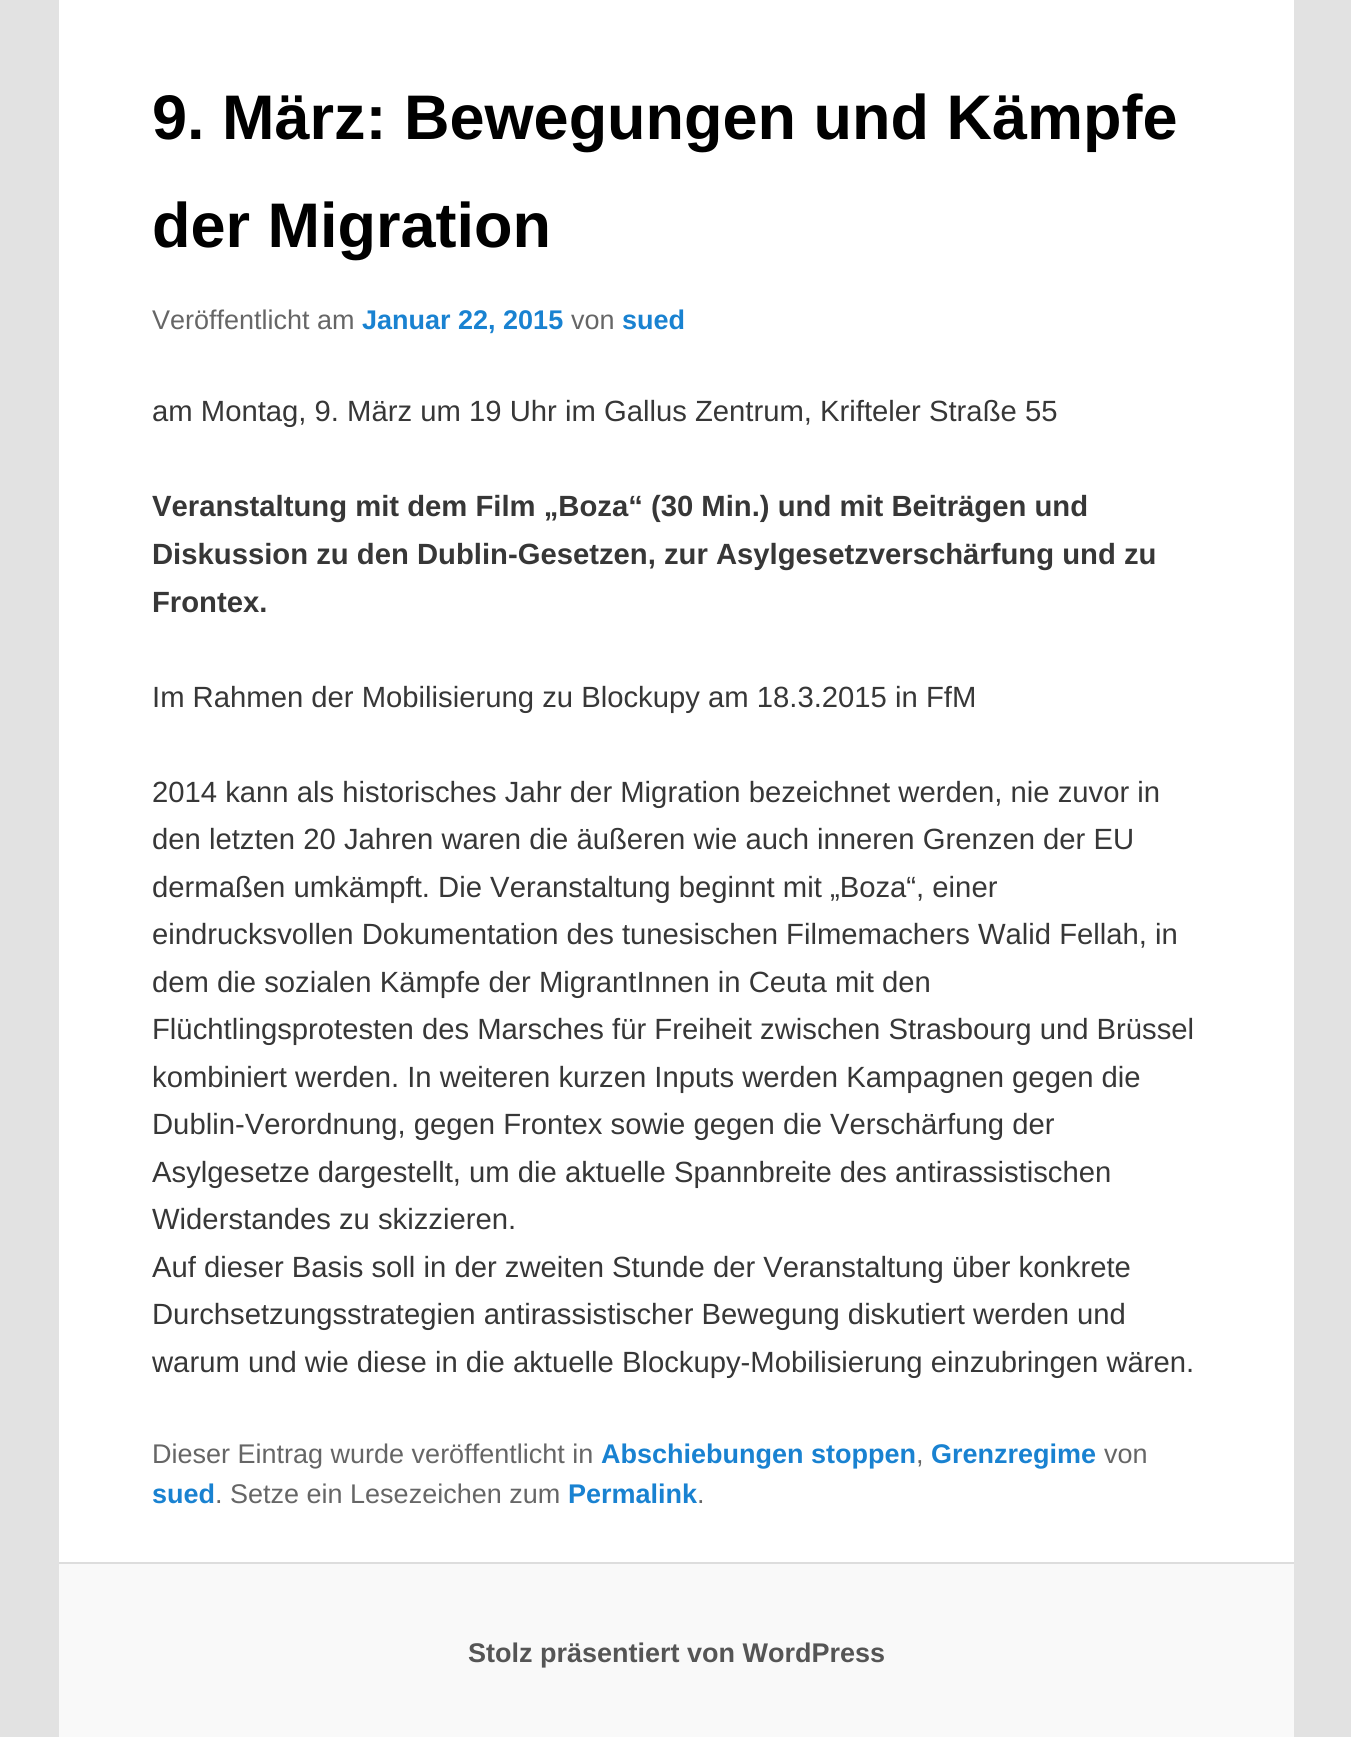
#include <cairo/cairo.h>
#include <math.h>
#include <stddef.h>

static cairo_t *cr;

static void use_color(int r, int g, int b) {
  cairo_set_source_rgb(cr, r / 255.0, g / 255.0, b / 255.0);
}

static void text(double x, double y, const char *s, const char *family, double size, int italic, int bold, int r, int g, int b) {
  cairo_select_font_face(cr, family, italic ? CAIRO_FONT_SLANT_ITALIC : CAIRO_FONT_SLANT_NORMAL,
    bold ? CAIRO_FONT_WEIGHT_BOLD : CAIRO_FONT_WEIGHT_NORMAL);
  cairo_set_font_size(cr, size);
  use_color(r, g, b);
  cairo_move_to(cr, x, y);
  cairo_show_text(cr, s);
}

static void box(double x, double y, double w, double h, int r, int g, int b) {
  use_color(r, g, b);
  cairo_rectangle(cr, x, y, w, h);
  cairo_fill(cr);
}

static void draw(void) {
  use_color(226, 226, 226);
  cairo_paint(cr);
  box(59, 0, 1235, 1562, 255, 255, 255);
  box(59, 1564, 1235, 173, 249, 249, 249);
  box(59, 1562, 1235, 2, 221, 221, 221);
  text(152, 139, "9. März: Bewegungen und Kämpfe", "Liberation Sans", 63, 0, 1, 0, 0, 0);
  text(152, 247, "der Migration", "Liberation Sans", 63, 0, 1, 0, 0, 0);
  text(152, 329, "Veröffentlicht am", "Liberation Sans", 27, 0, 0, 102, 102, 102);
  text(362, 329, "Januar 22, 2015", "Liberation Sans", 27, 0, 1, 25, 130, 209);
  text(571, 329, "von", "Liberation Sans", 27, 0, 0, 102, 102, 102);
  text(622, 329, "sued", "Liberation Sans", 27, 0, 1, 25, 130, 209);
  text(152, 421, "am Montag, 9. März um 19 Uhr im Gallus Zentrum, Krifteler Straße 55", "Liberation Sans", 29.25, 0, 0, 55, 55, 55);
  text(152, 516, "Veranstaltung mit dem Film „Boza“ (30 Min.) und mit Beiträgen und", "Liberation Sans", 29.25, 0, 1, 55, 55, 55);
  text(152, 564, "Diskussion zu den Dublin-Gesetzen, zur Asylgesetzverschärfung und zu", "Liberation Sans", 29.25, 0, 1, 55, 55, 55);
  text(152, 612, "Frontex.", "Liberation Sans", 29.25, 0, 1, 55, 55, 55);
  text(152, 707, "Im Rahmen der Mobilisierung zu Blockupy am 18.3.2015 in FfM", "Liberation Sans", 29.25, 0, 0, 55, 55, 55);
  text(152, 802, "2014 kann als historisches Jahr der Migration bezeichnet werden, nie zuvor in", "Liberation Sans", 29.25, 0, 0, 55, 55, 55);
  text(152, 849, "den letzten 20 Jahren waren die äußeren wie auch inneren Grenzen der EU", "Liberation Sans", 29.25, 0, 0, 55, 55, 55);
  text(152, 897, "dermaßen umkämpft. Die Veranstaltung beginnt mit „Boza“, einer", "Liberation Sans", 29.25, 0, 0, 55, 55, 55);
  text(152, 944, "eindrucksvollen Dokumentation des tunesischen Filmemachers Walid Fellah, in", "Liberation Sans", 29.25, 0, 0, 55, 55, 55);
  text(152, 992, "dem die sozialen Kämpfe der MigrantInnen in Ceuta mit den", "Liberation Sans", 29.25, 0, 0, 55, 55, 55);
  text(152, 1039, "Flüchtlingsprotesten des Marsches für Freiheit zwischen Strasbourg und Brüssel", "Liberation Sans", 29.25, 0, 0, 55, 55, 55);
  text(152, 1087, "kombiniert werden. In weiteren kurzen Inputs werden Kampagnen gegen die", "Liberation Sans", 29.25, 0, 0, 55, 55, 55);
  text(152, 1134, "Dublin-Verordnung, gegen Frontex sowie gegen die Verschärfung der", "Liberation Sans", 29.25, 0, 0, 55, 55, 55);
  text(152, 1182, "Asylgesetze dargestellt, um die aktuelle Spannbreite des antirassistischen", "Liberation Sans", 29.25, 0, 0, 55, 55, 55);
  text(152, 1229, "Widerstandes zu skizzieren.", "Liberation Sans", 29.25, 0, 0, 55, 55, 55);
  text(152, 1277, "Auf dieser Basis soll in der zweiten Stunde der Veranstaltung über konkrete", "Liberation Sans", 29.25, 0, 0, 55, 55, 55);
  text(152, 1324, "Durchsetzungsstrategien antirassistischer Bewegung diskutiert werden und", "Liberation Sans", 29.25, 0, 0, 55, 55, 55);
  text(152, 1372, "warum und wie diese in die aktuelle Blockupy-Mobilisierung einzubringen wären.", "Liberation Sans", 29.25, 0, 0, 55, 55, 55);
  text(152, 1463, "Dieser Eintrag wurde veröffentlicht in", "Liberation Sans", 27, 0, 0, 102, 102, 102);
  text(601, 1463, "Abschiebungen stoppen", "Liberation Sans", 27, 0, 1, 25, 130, 209);
  text(916, 1463, ",", "Liberation Sans", 27, 0, 0, 102, 102, 102);
  text(931, 1463, "Grenzregime", "Liberation Sans", 27, 0, 1, 25, 130, 209);
  text(1104, 1463, "von", "Liberation Sans", 27, 0, 0, 102, 102, 102);
  text(152, 1503, "sued", "Liberation Sans", 27, 0, 1, 25, 130, 209);
  text(215, 1503, ". Setze ein Lesezeichen zum", "Liberation Sans", 27, 0, 0, 102, 102, 102);
  text(568, 1503, "Permalink", "Liberation Sans", 27, 0, 1, 25, 130, 209);
  text(697, 1503, ".", "Liberation Sans", 27, 0, 0, 102, 102, 102);
  text(468, 1662, "Stolz präsentiert von WordPress", "Liberation Sans", 27, 0, 1, 85, 85, 85);
}

int main(void) {
  cairo_surface_t *surface = cairo_image_surface_create(CAIRO_FORMAT_RGB24, 1351, 1737);
  cr = cairo_create(surface);
  cairo_font_options_t *options = cairo_font_options_create();
  cairo_font_options_set_hint_metrics(options, CAIRO_HINT_METRICS_OFF);
  cairo_font_options_set_hint_style(options, CAIRO_HINT_STYLE_NONE);
  cairo_set_font_options(cr, options);
  cairo_set_miter_limit(cr, 4);
  draw();
  cairo_surface_write_to_png(surface, "out.png");
  cairo_font_options_destroy(options);
  cairo_destroy(cr);
  cairo_surface_destroy(surface);
  return 0;
}
